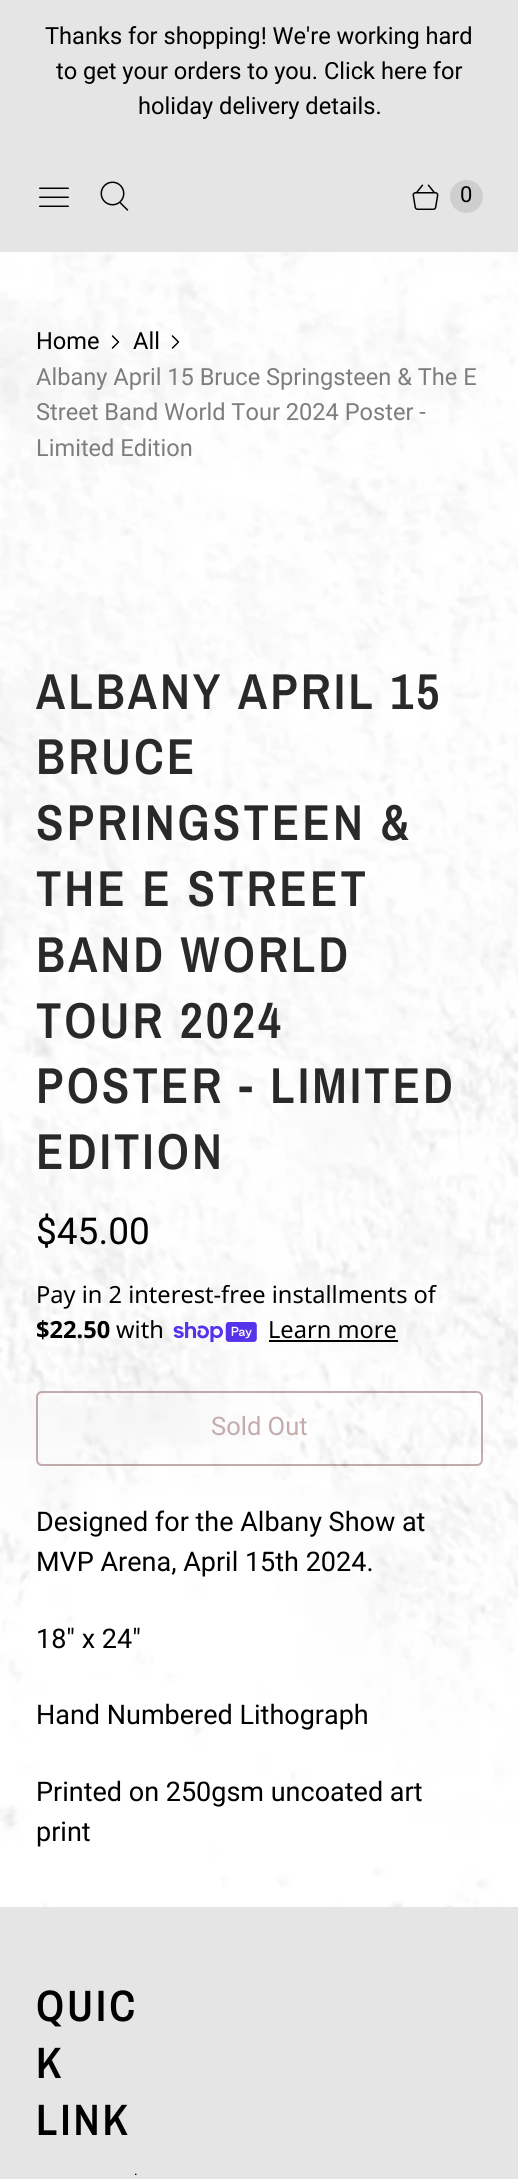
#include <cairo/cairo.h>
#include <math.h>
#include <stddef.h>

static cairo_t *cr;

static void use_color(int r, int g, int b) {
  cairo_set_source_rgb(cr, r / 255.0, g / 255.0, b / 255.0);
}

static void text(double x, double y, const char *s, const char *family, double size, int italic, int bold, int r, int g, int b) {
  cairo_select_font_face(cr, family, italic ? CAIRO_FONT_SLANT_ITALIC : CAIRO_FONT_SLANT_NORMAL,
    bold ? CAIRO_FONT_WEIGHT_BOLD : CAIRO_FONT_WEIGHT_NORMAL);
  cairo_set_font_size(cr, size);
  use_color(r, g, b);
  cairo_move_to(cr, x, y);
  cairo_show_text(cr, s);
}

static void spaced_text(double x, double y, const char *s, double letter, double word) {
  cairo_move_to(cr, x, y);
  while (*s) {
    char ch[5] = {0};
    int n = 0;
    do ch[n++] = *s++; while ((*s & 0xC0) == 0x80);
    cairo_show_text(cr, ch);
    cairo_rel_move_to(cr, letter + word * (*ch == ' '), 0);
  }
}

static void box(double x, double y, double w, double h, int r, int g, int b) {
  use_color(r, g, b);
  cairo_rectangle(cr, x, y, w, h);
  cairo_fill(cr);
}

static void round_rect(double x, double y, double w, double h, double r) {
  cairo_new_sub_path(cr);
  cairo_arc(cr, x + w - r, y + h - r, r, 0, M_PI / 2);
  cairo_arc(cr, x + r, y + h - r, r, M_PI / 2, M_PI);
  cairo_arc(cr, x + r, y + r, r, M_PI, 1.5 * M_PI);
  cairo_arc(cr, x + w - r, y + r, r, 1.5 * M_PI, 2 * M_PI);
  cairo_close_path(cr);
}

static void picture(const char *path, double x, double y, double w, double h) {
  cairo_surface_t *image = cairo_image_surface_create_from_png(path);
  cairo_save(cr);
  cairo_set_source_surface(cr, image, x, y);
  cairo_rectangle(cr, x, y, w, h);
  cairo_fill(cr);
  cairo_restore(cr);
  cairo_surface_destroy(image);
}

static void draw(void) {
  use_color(255, 255, 255);
  cairo_paint(cr);
  picture("img_01.png", 0, 252, 518, 1655);
  box(0, 0, 518, 252, 229, 229, 229);
  picture("img_02.png", 39, 187, 30, 20);
  picture("img_03.png", 100, 181, 29, 30);
  picture("img_04.png", 412, 184, 27, 26);
  use_color(206, 206, 206);
  cairo_arc(cr, 466.5, 196.5, 16.5, 0, 2 * M_PI);
  cairo_fill(cr);
  picture("img_05.png", 111, 335, 9, 14);
  picture("img_06.png", 171, 335, 9, 14);
  picture("img_07.png", 173, 1322, 84, 21);
  box(269, 1340, 129, 2, 0, 0, 0);
  round_rect(37, 1392, 445, 73, 5);
  cairo_set_source_rgba(cr, 0.443, 0.204, 0.204, 0.4);
  cairo_stroke(cr);
  box(0, 1907, 518, 272, 229, 229, 229);
  picture("img_08.png", 135, 2173, 2, 2);
  text(45, 44, "Thanks for shopping! We're working hard", "Roboto", 23.6, 0, 0, 0, 0, 0);
  text(56, 79, "to get your orders to you. Click here for", "Roboto", 23.6, 0, 0, 0, 0, 0);
  text(138, 114, "holiday delivery details.", "Roboto", 23.6, 0, 0, 0, 0, 0);
  text(460, 202, "0", "Roboto", 22, 0, 0, 0, 0, 0);
  text(36, 349, "Home", "Roboto", 23.6, 0, 0, 0, 0, 0);
  text(133, 349, "All", "Roboto", 23.6, 0, 0, 0, 0, 0);
  text(36, 385, "Albany April 15 Bruce Springsteen & The E", "Roboto", 23.6, 0, 0, 125, 125, 125);
  text(36, 420, "Street Band World Tour 2024 Poster -", "Roboto", 23.6, 0, 0, 125, 125, 125);
  text(36, 456, "Limited Edition", "Roboto", 23.6, 0, 0, 125, 125, 125);
  cairo_select_font_face(cr, "Archivo Narrow SemiBold", CAIRO_FONT_SLANT_NORMAL, CAIRO_FONT_WEIGHT_NORMAL);
  cairo_set_font_size(cr, 50.5);
  use_color(41, 41, 41);
  spaced_text(36, 709, "ALBANY APRIL 15", 3, 0);
  spaced_text(36, 774, "BRUCE", 3, 0);
  spaced_text(36, 840, "SPRINGSTEEN &", 3, 0);
  spaced_text(36, 906, "THE E STREET", 3, 0);
  spaced_text(36, 972, "BAND WORLD", 3, 0);
  spaced_text(36, 1038, "TOUR 2024", 3, 0);
  spaced_text(36, 1103, "POSTER - LIMITED", 3, 0);
  spaced_text(36, 1169, "EDITION", 3, 0);
  text(36, 1244, "$45.00", "Roboto", 37, 0, 0, 0, 0, 0);
  text(36, 1303, "Pay in 2 interest-free installments of", "Noto Sans", 23.6, 0, 0, 0, 0, 0);
  text(36, 1338, "$22.50", "Noto Sans", 23.6, 0, 1, 0, 0, 0);
  text(116, 1338, "with", "Noto Sans", 23.6, 0, 0, 0, 0, 0);
  text(268, 1338, "Learn more", "Noto Sans", 23.6, 0, 0, 0, 0, 0);
  text(211, 1435, "Sold Out", "Roboto", 25.5, 0, 0, 196, 172, 172);
  text(36, 1531, "Designed for the Albany Show at", "Roboto", 27, 0, 0, 0, 0, 0);
  text(36, 1571, "MVP Arena, April 15th 2024.", "Roboto", 27, 0, 0, 0, 0, 0);
  text(36, 1648, "18\" x 24\"", "Roboto", 27, 0, 0, 0, 0, 0);
  text(36, 1724, "Hand Numbered Lithograph", "Roboto", 27, 0, 0, 0, 0, 0);
  text(36, 1801, "Printed on 250gsm uncoated art", "Roboto", 27, 0, 0, 0, 0, 0);
  text(36, 1841, "print", "Roboto", 27, 0, 0, 0, 0, 0);
  cairo_select_font_face(cr, "Archivo Narrow SemiBold", CAIRO_FONT_SLANT_NORMAL, CAIRO_FONT_WEIGHT_NORMAL);
  cairo_set_font_size(cr, 44);
  spaced_text(36, 2021, "QUIC", 3, 0);
  spaced_text(36, 2078, "K", 3, 0);
  spaced_text(36, 2135, "LINK", 3, 0);
}

int main(void) {
  cairo_surface_t *surface = cairo_image_surface_create(CAIRO_FORMAT_RGB24, 518, 2179);
  cr = cairo_create(surface);
  cairo_font_options_t *options = cairo_font_options_create();
  cairo_font_options_set_hint_metrics(options, CAIRO_HINT_METRICS_OFF);
  cairo_font_options_set_hint_style(options, CAIRO_HINT_STYLE_NONE);
  cairo_set_font_options(cr, options);
  cairo_set_miter_limit(cr, 4);
  draw();
  cairo_surface_write_to_png(surface, "out.png");
  cairo_font_options_destroy(options);
  cairo_destroy(cr);
  cairo_surface_destroy(surface);
  return 0;
}
